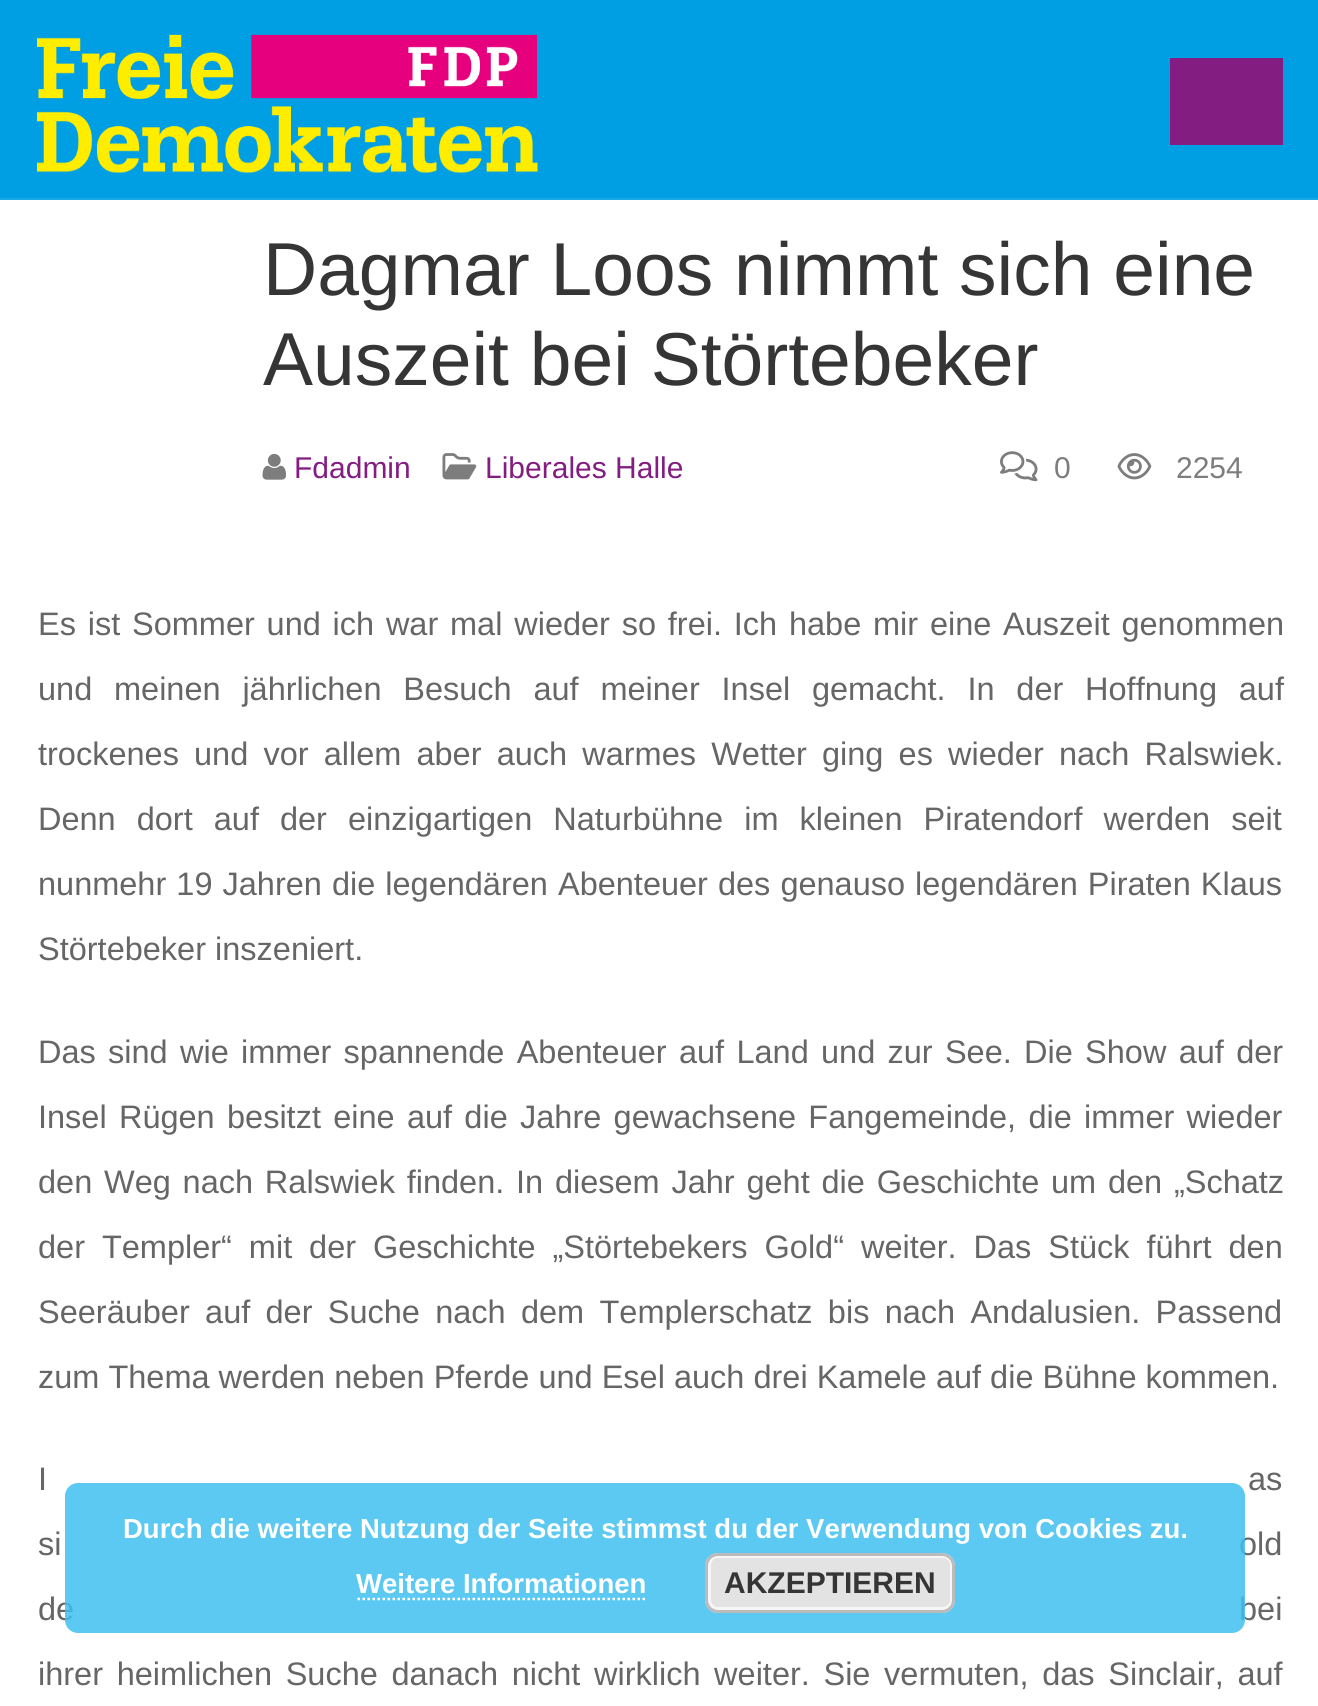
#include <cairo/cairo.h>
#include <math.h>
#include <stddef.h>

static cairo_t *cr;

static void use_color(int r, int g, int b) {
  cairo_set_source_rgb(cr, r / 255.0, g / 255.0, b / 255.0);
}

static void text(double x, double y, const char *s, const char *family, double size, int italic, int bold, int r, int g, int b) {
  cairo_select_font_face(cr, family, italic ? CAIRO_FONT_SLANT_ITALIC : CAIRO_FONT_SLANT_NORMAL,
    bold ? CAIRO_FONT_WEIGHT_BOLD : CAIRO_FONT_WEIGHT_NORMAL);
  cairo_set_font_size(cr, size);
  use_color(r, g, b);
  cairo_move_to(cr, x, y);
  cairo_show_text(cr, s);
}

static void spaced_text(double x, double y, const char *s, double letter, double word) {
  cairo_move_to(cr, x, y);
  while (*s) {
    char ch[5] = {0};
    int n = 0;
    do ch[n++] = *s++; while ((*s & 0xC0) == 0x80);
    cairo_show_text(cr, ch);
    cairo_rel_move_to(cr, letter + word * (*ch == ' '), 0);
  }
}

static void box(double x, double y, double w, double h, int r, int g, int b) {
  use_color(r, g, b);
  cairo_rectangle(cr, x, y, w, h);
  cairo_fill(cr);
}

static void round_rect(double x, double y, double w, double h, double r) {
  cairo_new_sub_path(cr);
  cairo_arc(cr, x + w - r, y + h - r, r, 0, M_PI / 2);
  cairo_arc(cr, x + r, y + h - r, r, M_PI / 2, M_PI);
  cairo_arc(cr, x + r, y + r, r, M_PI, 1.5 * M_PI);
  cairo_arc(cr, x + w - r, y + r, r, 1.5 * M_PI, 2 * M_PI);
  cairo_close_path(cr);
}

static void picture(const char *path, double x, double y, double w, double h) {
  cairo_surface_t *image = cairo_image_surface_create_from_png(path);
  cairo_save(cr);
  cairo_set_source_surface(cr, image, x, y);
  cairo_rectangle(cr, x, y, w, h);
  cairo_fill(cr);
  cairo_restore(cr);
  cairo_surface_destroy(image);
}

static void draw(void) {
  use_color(255, 255, 255);
  cairo_paint(cr);
  box(0, 0, 1318, 200, 0, 158, 227);
  cairo_set_source_rgba(cr, 1, 1, 1, 0.1);
  cairo_rectangle(cr, 0, 198, 1318, 2);
  cairo_fill(cr);
  picture("img_01.png", 37, 34, 501, 139);
  box(1170, 58, 113, 87, 131, 29, 129);
  picture("img_02.png", 262, 453, 25, 27);
  picture("img_03.png", 442, 453, 35, 27);
  picture("img_04.png", 1000, 451, 38, 31);
  picture("img_05.png", 1117, 453, 35, 27);
  text(263, 295, "Dagmar Loos nimmt sich eine", "Liberation Sans", 75, 0, 0, 53, 53, 53);
  text(263, 385, "Auszeit bei Störtebeker", "Liberation Sans", 75, 0, 0, 53, 53, 53);
  text(294, 478, "Fdadmin", "Liberation Sans", 30, 0, 0, 131, 29, 129);
  text(485, 478, "Liberales Halle", "Liberation Sans", 30, 0, 0, 131, 29, 129);
  text(1054, 478, "0", "Liberation Sans", 30, 0, 0, 125, 125, 125);
  text(1176, 478, "2254", "Liberation Sans", 30, 0, 0, 125, 125, 125);
  cairo_set_font_size(cr, 32.5);
  use_color(102, 102, 102);
  spaced_text(38, 635, "Es ist Sommer und ich war mal wieder so frei. Ich habe mir eine Auszeit genommen", 0, 2.75);
  spaced_text(38, 700, "und meinen jährlichen Besuch auf meiner Insel gemacht. In der Hoffnung auf", 0, 12.75);
  spaced_text(38, 765, "trockenes und vor allem aber auch warmes Wetter ging es wieder nach Ralswiek.", 0, 6.1);
  spaced_text(38, 830, "Denn dort auf der einzigartigen Naturbühne im kleinen Piratendorf werden seit", 0, 12);
  spaced_text(38, 895, "nunmehr 19 Jahren die legendären Abenteuer des genauso legendären Piraten Klaus", 0, 1);
  text(38, 960, "Störtebeker inszeniert.", "Liberation Sans", 32.5, 0, 0, 102, 102, 102);
  spaced_text(38, 1063, "Das sind wie immer spannende Abenteuer auf Land und zur See. Die Show auf der", 0, 3.25);
  spaced_text(38, 1128, "Insel Rügen besitzt eine auf die Jahre gewachsene Fangemeinde, die immer wieder", 0, 3.25);
  spaced_text(38, 1193, "den Weg nach Ralswiek finden. In diesem Jahr geht die Geschichte um den „Schatz", 0, 2.75);
  spaced_text(38, 1258, "der Templer“ mit der Geschichte „Störtebekers Gold“ weiter. Das Stück führt den", 0, 7.9);
  spaced_text(38, 1323, "Seeräuber auf der Suche nach dem Templerschatz bis nach Andalusien. Passend", 0, 6.25);
  text(38, 1388, "zum Thema werden neben Pferde und Esel auch drei Kamele auf die Bühne kommen.", "Liberation Sans", 32.5, 0, 0, 102, 102, 102);
  spaced_text(38, 1490, "I", 0, 2);
  spaced_text(1248, 1490, "as", 0, 2);
  text(38, 1555, "si", "Liberation Sans", 32.5, 0, 0, 102, 102, 102);
  text(1239, 1555, "old", "Liberation Sans", 32.5, 0, 0, 102, 102, 102);
  spaced_text(38, 1620, "de", 0, 7);
  spaced_text(1239, 1620, "bei", 0, 7);
  spaced_text(38, 1685, "ihrer heimlichen Suche danach nicht wirklich weiter. Sie vermuten, das Sinclair, auf", 0, 4.6);
  cairo_set_source_rgba(cr, 0.251, 0.753, 0.941, 0.85);
  round_rect(65, 1483, 1180, 150, 13);
  cairo_fill(cr);
  text(123, 1538, "Durch die weitere Nutzung der Seite stimmst du der Verwendung von Cookies zu.", "Liberation Sans", 27.5, 0, 1, 255, 255, 255);
  text(356, 1593, "Weitere Informationen", "Liberation Sans", 27.5, 0, 1, 255, 255, 255);
  cairo_new_path(cr);
  cairo_move_to(cr, 357.5, 1599);
  cairo_line_to(cr, 647.5, 1599);
  cairo_set_line_width(cr, 2.5);
  cairo_set_dash(cr, (double[]){2.5, 2.5}, 2, 0);
  cairo_stroke(cr);
  use_color(227, 227, 227);
  round_rect(705, 1553, 250, 60, 13);
  cairo_fill(cr);
  round_rect(709.5, 1556.5, 242, 52, 8.5);
  use_color(246, 246, 246);
  cairo_set_line_width(cr, 3);
  cairo_set_dash(cr, NULL, 0, 0);
  cairo_stroke(cr);
  round_rect(706.5, 1554.5, 247, 57, 11.5);
  use_color(187, 187, 187);
  cairo_stroke(cr);
  text(724, 1593, "AKZEPTIEREN", "Liberation Sans", 30, 0, 1, 53, 53, 53);
}

int main(void) {
  cairo_surface_t *surface = cairo_image_surface_create(CAIRO_FORMAT_RGB24, 1318, 1706);
  cr = cairo_create(surface);
  cairo_font_options_t *options = cairo_font_options_create();
  cairo_font_options_set_hint_metrics(options, CAIRO_HINT_METRICS_OFF);
  cairo_font_options_set_hint_style(options, CAIRO_HINT_STYLE_NONE);
  cairo_set_font_options(cr, options);
  cairo_set_miter_limit(cr, 4);
  draw();
  cairo_surface_write_to_png(surface, "out.png");
  cairo_font_options_destroy(options);
  cairo_destroy(cr);
  cairo_surface_destroy(surface);
  return 0;
}
